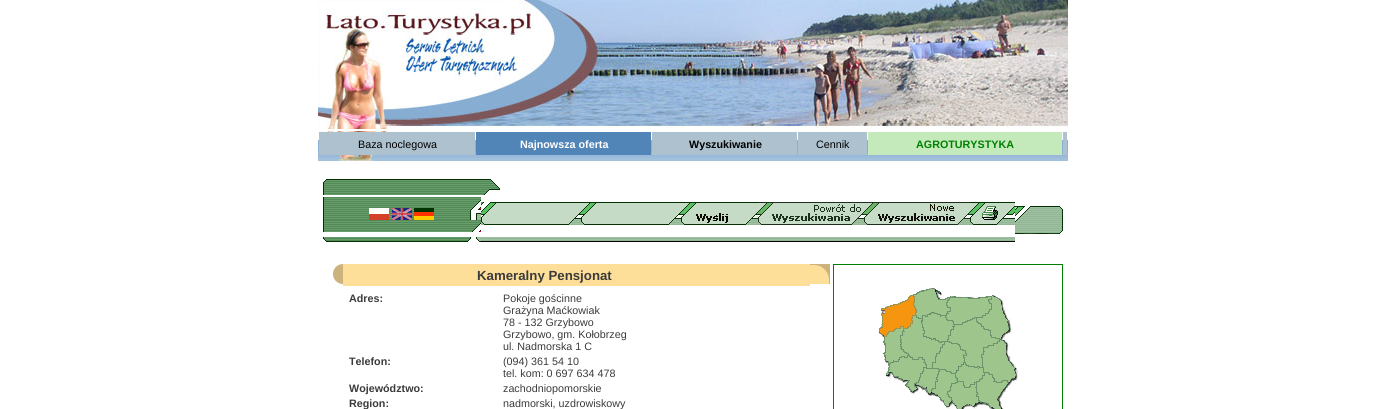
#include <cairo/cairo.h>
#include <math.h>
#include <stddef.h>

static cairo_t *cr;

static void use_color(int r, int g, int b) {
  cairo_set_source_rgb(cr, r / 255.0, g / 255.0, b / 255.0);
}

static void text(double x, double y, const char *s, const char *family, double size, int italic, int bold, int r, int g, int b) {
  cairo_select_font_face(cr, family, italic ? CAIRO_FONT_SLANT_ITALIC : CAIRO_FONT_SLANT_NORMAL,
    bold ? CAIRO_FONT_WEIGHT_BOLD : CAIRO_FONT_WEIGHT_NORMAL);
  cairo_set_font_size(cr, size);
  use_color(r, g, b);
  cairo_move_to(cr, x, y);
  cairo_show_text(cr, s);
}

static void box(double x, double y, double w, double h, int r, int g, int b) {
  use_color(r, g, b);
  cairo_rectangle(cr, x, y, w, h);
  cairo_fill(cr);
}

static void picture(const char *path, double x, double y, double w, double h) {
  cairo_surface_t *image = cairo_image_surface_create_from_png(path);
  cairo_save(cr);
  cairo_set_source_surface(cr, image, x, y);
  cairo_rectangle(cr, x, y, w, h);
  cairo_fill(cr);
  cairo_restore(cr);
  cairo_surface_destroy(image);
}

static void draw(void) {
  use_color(255, 255, 255);
  cairo_paint(cr);
  picture("img_01.png", 318, 0, 280, 129);
  picture("img_02.png", 598, 0, 470, 128);
  picture("img_03.png", 318, 131, 750, 25);
  box(319, 132, 156, 23, 173, 193, 206);
  box(476, 132, 175, 23, 82, 133, 183);
  box(652, 132, 145, 23, 173, 193, 206);
  box(798, 132, 69, 23, 173, 193, 206);
  box(868, 132, 194, 23, 196, 234, 188);
  box(1063, 132, 4, 23, 173, 193, 206);
  picture("img_04.png", 318, 156, 750, 5);
  picture("img_05.png", 323, 179, 177, 16);
  picture("img_06.png", 323, 197, 158, 35);
  picture("img_07.png", 369, 208, 20, 12);
  picture("img_08.png", 392, 208, 20, 12);
  picture("img_09.png", 414, 208, 20, 12);
  picture("img_10.png", 481, 202, 100, 23);
  picture("img_11.png", 581, 202, 100, 23);
  picture("img_12.png", 681, 202, 77, 23);
  picture("img_13.png", 758, 202, 106, 23);
  picture("img_14.png", 864, 202, 106, 23);
  picture("img_15.png", 970, 202, 45, 23);
  picture("img_16.png", 323, 237, 158, 5);
  picture("img_17.png", 481, 237, 534, 5);
  picture("img_18.png", 1015, 206, 48, 28);
  picture("img_19.png", 333, 264, 10, 20);
  box(343, 264, 467, 22, 253, 223, 153);
  picture("img_20.png", 810, 264, 20, 20);
  box(833, 264, 230, 145, 0, 128, 0);
  box(834, 265, 228, 144, 255, 255, 255);
  picture("img_21.png", 878, 288, 140, 121);
  text(358, 148, "Baza noclegowa", "Liberation Sans", 10.75, 0, 0, 0, 0, 0);
  text(520, 148, "Najnowsza oferta", "Liberation Sans", 10.75, 0, 1, 255, 255, 255);
  text(689, 148, "Wyszukiwanie", "Liberation Sans", 10.75, 0, 1, 0, 0, 0);
  text(816, 148, "Cennik", "Liberation Sans", 10.75, 0, 0, 0, 0, 0);
  text(916, 148, "AGROTURYSTYKA", "Liberation Sans", 10.75, 0, 1, 0, 128, 0);
  text(477, 280, "Kameralny Pensjonat", "Liberation Sans", 13.25, 0, 1, 59, 59, 59);
  text(349, 302, "Adres:", "Liberation Sans", 10.75, 0, 1, 59, 59, 59);
  text(503, 302, "Pokoje gościnne", "Liberation Sans", 10.75, 0, 0, 59, 59, 59);
  text(503, 314, "Grażyna Maćkowiak", "Liberation Sans", 10.75, 0, 0, 59, 59, 59);
  text(503, 326, "78 - 132 Grzybowo", "Liberation Sans", 10.75, 0, 0, 59, 59, 59);
  text(503, 338, "Grzybowo, gm. Kołobrzeg", "Liberation Sans", 10.75, 0, 0, 59, 59, 59);
  text(503, 350, "ul. Nadmorska 1 C", "Liberation Sans", 10.75, 0, 0, 59, 59, 59);
  text(349, 365, "Telefon:", "Liberation Sans", 10.75, 0, 1, 59, 59, 59);
  text(503, 365, "(094) 361 54 10", "Liberation Sans", 10.75, 0, 0, 59, 59, 59);
  text(503, 377, "tel. kom: 0 697 634 478", "Liberation Sans", 10.75, 0, 0, 59, 59, 59);
  text(349, 392, "Województwo:", "Liberation Sans", 10.75, 0, 1, 59, 59, 59);
  text(503, 392, "zachodniopomorskie", "Liberation Sans", 10.75, 0, 0, 59, 59, 59);
  text(349, 407, "Region:", "Liberation Sans", 10.75, 0, 1, 59, 59, 59);
  text(503, 407, "nadmorski, uzdrowiskowy", "Liberation Sans", 10.75, 0, 0, 59, 59, 59);
}

int main(void) {
  cairo_surface_t *surface = cairo_image_surface_create(CAIRO_FORMAT_RGB24, 1385, 409);
  cr = cairo_create(surface);
  cairo_font_options_t *options = cairo_font_options_create();
  cairo_font_options_set_hint_metrics(options, CAIRO_HINT_METRICS_OFF);
  cairo_font_options_set_hint_style(options, CAIRO_HINT_STYLE_NONE);
  cairo_set_font_options(cr, options);
  cairo_set_miter_limit(cr, 4);
  draw();
  cairo_surface_write_to_png(surface, "out.png");
  cairo_font_options_destroy(options);
  cairo_destroy(cr);
  cairo_surface_destroy(surface);
  return 0;
}
